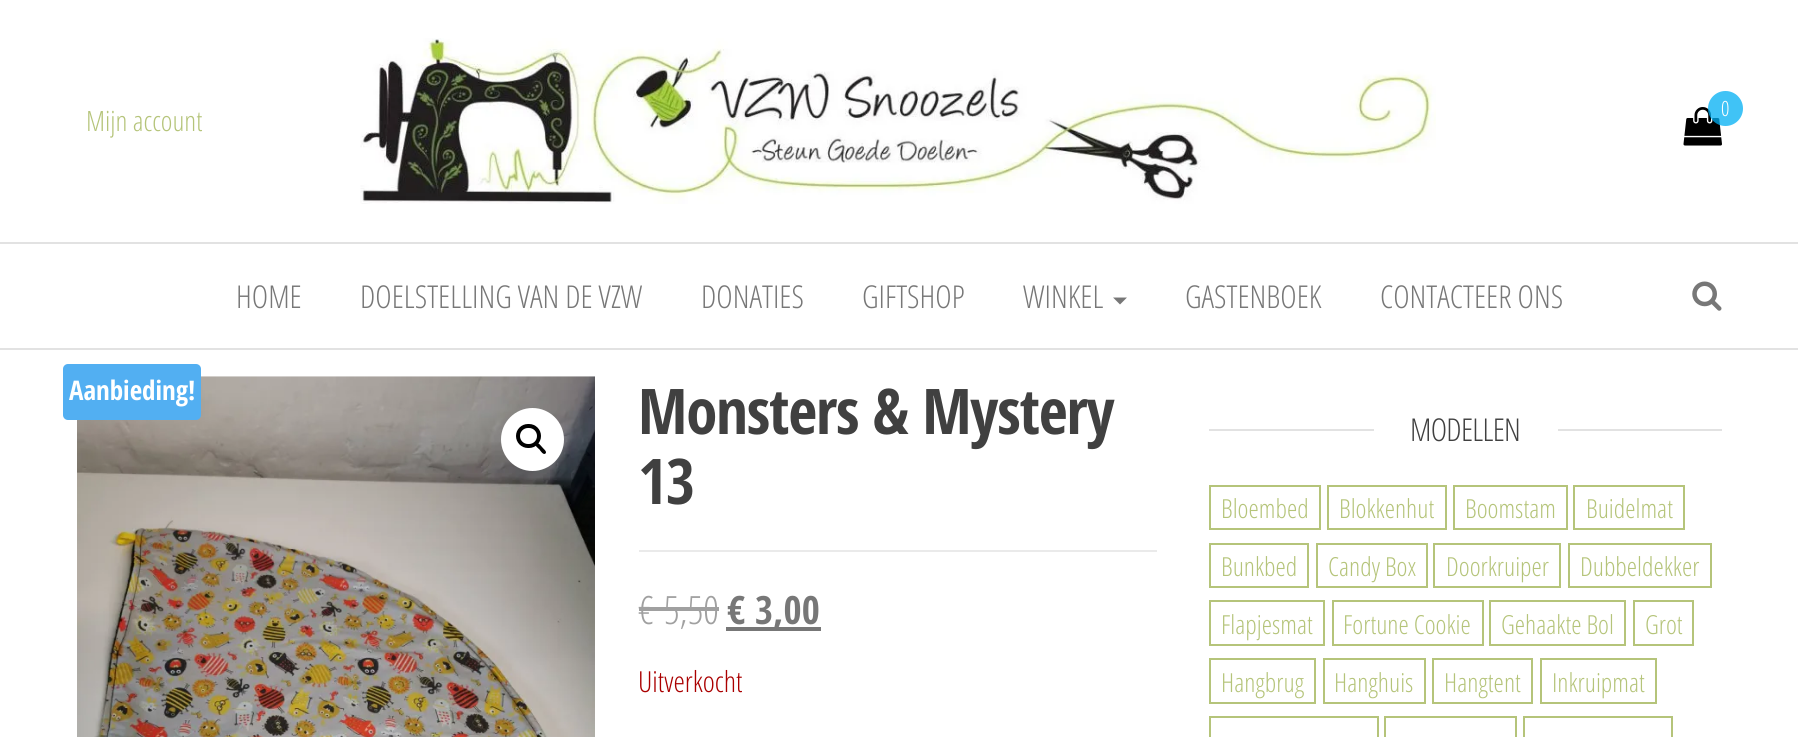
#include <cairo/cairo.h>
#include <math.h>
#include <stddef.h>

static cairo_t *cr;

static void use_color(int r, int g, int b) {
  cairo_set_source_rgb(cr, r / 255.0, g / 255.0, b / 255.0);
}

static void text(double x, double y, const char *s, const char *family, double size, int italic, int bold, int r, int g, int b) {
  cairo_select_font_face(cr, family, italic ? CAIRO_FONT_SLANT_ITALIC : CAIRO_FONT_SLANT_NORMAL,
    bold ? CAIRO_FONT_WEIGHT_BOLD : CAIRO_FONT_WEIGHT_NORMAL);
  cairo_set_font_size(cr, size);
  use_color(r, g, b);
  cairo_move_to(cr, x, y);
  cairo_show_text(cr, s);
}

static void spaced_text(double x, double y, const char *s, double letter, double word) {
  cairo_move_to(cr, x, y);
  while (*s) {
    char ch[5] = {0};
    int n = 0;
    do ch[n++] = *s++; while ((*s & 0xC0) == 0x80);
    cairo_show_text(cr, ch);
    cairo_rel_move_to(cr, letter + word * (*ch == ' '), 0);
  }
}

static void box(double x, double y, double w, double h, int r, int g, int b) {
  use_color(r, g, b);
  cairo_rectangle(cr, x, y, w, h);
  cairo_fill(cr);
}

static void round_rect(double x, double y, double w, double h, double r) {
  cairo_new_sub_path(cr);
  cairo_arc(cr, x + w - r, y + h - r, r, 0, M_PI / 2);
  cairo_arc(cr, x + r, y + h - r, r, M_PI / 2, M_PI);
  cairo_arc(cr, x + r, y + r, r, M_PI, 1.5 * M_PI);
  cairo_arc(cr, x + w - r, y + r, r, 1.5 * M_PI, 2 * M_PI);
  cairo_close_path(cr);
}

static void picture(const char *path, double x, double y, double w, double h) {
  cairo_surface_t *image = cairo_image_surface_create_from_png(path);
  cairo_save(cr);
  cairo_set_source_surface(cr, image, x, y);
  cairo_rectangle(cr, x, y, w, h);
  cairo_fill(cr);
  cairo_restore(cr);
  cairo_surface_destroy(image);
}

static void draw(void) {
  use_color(255, 255, 255);
  cairo_paint(cr);
  picture("img_01.png", 360, 38, 1076, 166);
  picture("img_02.png", 1683, 107, 39, 39);
  cairo_set_source_rgba(cr, 0, 0.686, 0.949, 0.75);
  cairo_arc(cr, 1725.5, 108.5, 17.5, 0, 2 * M_PI);
  cairo_fill(cr);
  box(0, 242, 1798, 2, 226, 226, 226);
  box(0, 348, 1798, 2, 226, 226, 226);
  use_color(119, 119, 119);
  cairo_new_path(cr);
  cairo_move_to(cr, 1113, 297.5);
  cairo_line_to(cr, 1127, 297.5);
  cairo_line_to(cr, 1120, 304.5);
  cairo_close_path(cr);
  cairo_fill(cr);
  picture("img_03.png", 1692, 281, 30, 30);
  picture("img_04.png", 77, 376, 518, 361);
  use_color(255, 255, 255);
  cairo_arc(cr, 532.5, 439.5, 31.5, 0, 2 * M_PI);
  cairo_fill(cr);
  round_rect(518, 426, 21, 20, 10);
  use_color(0, 0, 0);
  cairo_set_line_width(cr, 4);
  cairo_stroke(cr);
  cairo_new_path(cr);
  cairo_move_to(cr, 536, 443.5);
  cairo_curve_to(cr, 538, 441.5, 541, 446, 542, 447);
  cairo_curve_to(cr, 543, 448.5, 547.5, 451.5, 545.5, 453.5);
  cairo_curve_to(cr, 543.5, 455.5, 540.5, 451, 539.5, 449.5);
  cairo_curve_to(cr, 538.5, 448.5, 534, 445.5, 536, 443.5);
  cairo_close_path(cr);
  cairo_fill(cr);
  use_color(82, 175, 242);
  round_rect(63, 364, 138, 56, 5);
  cairo_fill(cr);
  box(639, 550, 518, 2, 234, 234, 234);
  box(639, 607, 16, 4, 160, 160, 160);
  box(655, 607, 64, 4, 160, 160, 160);
  box(726, 627, 95, 4, 119, 119, 119);
  box(1209, 429, 513, 2, 226, 226, 226);
  box(1374, 429, 184, 2, 255, 255, 255);
  cairo_rectangle(cr, 1210, 486, 110, 43);
  use_color(181, 196, 122);
  cairo_set_line_width(cr, 2);
  cairo_stroke(cr);
  cairo_rectangle(cr, 1328, 486, 118, 43);
  cairo_stroke(cr);
  cairo_rectangle(cr, 1454, 486, 113, 43);
  cairo_stroke(cr);
  cairo_rectangle(cr, 1574, 486, 110, 43);
  cairo_stroke(cr);
  cairo_rectangle(cr, 1210, 544, 98, 43);
  cairo_stroke(cr);
  cairo_rectangle(cr, 1317, 544, 110, 43);
  cairo_stroke(cr);
  cairo_rectangle(cr, 1434, 544, 126, 43);
  cairo_stroke(cr);
  cairo_rectangle(cr, 1569, 544, 142, 43);
  cairo_stroke(cr);
  cairo_rectangle(cr, 1210, 601, 114, 44);
  cairo_stroke(cr);
  cairo_rectangle(cr, 1333, 601, 150, 44);
  cairo_stroke(cr);
  cairo_rectangle(cr, 1490, 601, 135, 44);
  cairo_stroke(cr);
  cairo_rectangle(cr, 1634, 601, 59, 44);
  cairo_stroke(cr);
  cairo_rectangle(cr, 1210, 659, 105, 44);
  cairo_stroke(cr);
  cairo_rectangle(cr, 1324, 659, 101, 44);
  cairo_stroke(cr);
  cairo_rectangle(cr, 1433, 659, 99, 44);
  cairo_stroke(cr);
  cairo_rectangle(cr, 1541, 659, 115, 44);
  cairo_stroke(cr);
  cairo_rectangle(cr, 1210, 717, 168, 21);
  cairo_stroke(cr);
  cairo_rectangle(cr, 1385, 717, 131, 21);
  cairo_stroke(cr);
  cairo_rectangle(cr, 1524, 717, 148, 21);
  cairo_stroke(cr);
  text(86, 131, "Mijn account", "Open Sans Condensed Light", 28, 0, 0, 181, 196, 122);
  text(1721, 116, "0", "Open Sans Condensed Light", 21, 0, 0, 255, 255, 255);
  text(236, 308, "HOME", "Open Sans Condensed Light", 31.5, 0, 0, 119, 119, 119);
  text(360, 308, "DOELSTELLING VAN DE VZW", "Open Sans Condensed Light", 31.5, 0, 0, 119, 119, 119);
  text(701, 308, "DONATIES", "Open Sans Condensed Light", 31.5, 0, 0, 119, 119, 119);
  text(862, 308, "GIFTSHOP", "Open Sans Condensed Light", 31.5, 0, 0, 119, 119, 119);
  text(1023, 308, "WINKEL", "Open Sans Condensed Light", 31.5, 0, 0, 119, 119, 119);
  text(1185, 308, "GASTENBOEK", "Open Sans Condensed Light", 31.5, 0, 0, 119, 119, 119);
  text(1380, 308, "CONTACTEER ONS", "Open Sans Condensed Light", 31.5, 0, 0, 119, 119, 119);
  text(69, 400, "Aanbieding!", "Open Sans Condensed", 27, 0, 1, 255, 255, 255);
  cairo_set_font_size(cr, 63);
  use_color(64, 64, 64);
  spaced_text(638, 434, "Monsters & Mystery", -1.25, 0);
  spaced_text(638, 504, "13", -1.25, 0);
  text(638, 624, "€", "Open Sans Condensed Light", 39, 0, 0, 160, 160, 160);
  text(664, 624, "5,50", "Open Sans Condensed Light", 39, 0, 0, 160, 160, 160);
  text(727, 624, "€", "Open Sans Condensed", 39, 0, 1, 119, 119, 119);
  text(755, 624, "3,00", "Open Sans Condensed", 39, 0, 1, 119, 119, 119);
  text(638, 692, "Uitverkocht", "Open Sans Condensed Light", 29, 0, 0, 170, 0, 0);
  cairo_set_font_size(cr, 31.5);
  use_color(64, 64, 64);
  spaced_text(1410, 441, "MODELLEN", -0.75, 0);
  text(1221, 518, "Bloembed", "Open Sans Condensed Light", 26.25, 0, 0, 181, 196, 122);
  text(1339, 518, "Blokkenhut", "Open Sans Condensed Light", 26.25, 0, 0, 181, 196, 122);
  text(1465, 518, "Boomstam", "Open Sans Condensed Light", 26.25, 0, 0, 181, 196, 122);
  text(1586, 518, "Buidelmat", "Open Sans Condensed Light", 26.25, 0, 0, 181, 196, 122);
  text(1221, 576, "Bunkbed", "Open Sans Condensed Light", 26.25, 0, 0, 181, 196, 122);
  text(1328, 576, "Candy Box", "Open Sans Condensed Light", 26.25, 0, 0, 181, 196, 122);
  text(1446, 576, "Doorkruiper", "Open Sans Condensed Light", 26.25, 0, 0, 181, 196, 122);
  text(1580, 576, "Dubbeldekker", "Open Sans Condensed Light", 26.25, 0, 0, 181, 196, 122);
  text(1221, 634, "Flapjesmat", "Open Sans Condensed Light", 26.25, 0, 0, 181, 196, 122);
  text(1343, 634, "Fortune Cookie", "Open Sans Condensed Light", 26.25, 0, 0, 181, 196, 122);
  text(1501, 634, "Gehaakte Bol", "Open Sans Condensed Light", 26.25, 0, 0, 181, 196, 122);
  text(1645, 634, "Grot", "Open Sans Condensed Light", 26.25, 0, 0, 181, 196, 122);
  text(1221, 692, "Hangbrug", "Open Sans Condensed Light", 26.25, 0, 0, 181, 196, 122);
  text(1334, 692, "Hanghuis", "Open Sans Condensed Light", 26.25, 0, 0, 181, 196, 122);
  text(1444, 692, "Hangtent", "Open Sans Condensed Light", 26.25, 0, 0, 181, 196, 122);
  text(1552, 692, "Inkruipmat", "Open Sans Condensed Light", 26.25, 0, 0, 181, 196, 122);
}

int main(void) {
  cairo_surface_t *surface = cairo_image_surface_create(CAIRO_FORMAT_RGB24, 1798, 737);
  cr = cairo_create(surface);
  cairo_font_options_t *options = cairo_font_options_create();
  cairo_font_options_set_hint_metrics(options, CAIRO_HINT_METRICS_OFF);
  cairo_font_options_set_hint_style(options, CAIRO_HINT_STYLE_NONE);
  cairo_set_font_options(cr, options);
  cairo_set_miter_limit(cr, 4);
  draw();
  cairo_surface_write_to_png(surface, "out.png");
  cairo_font_options_destroy(options);
  cairo_destroy(cr);
  cairo_surface_destroy(surface);
  return 0;
}
